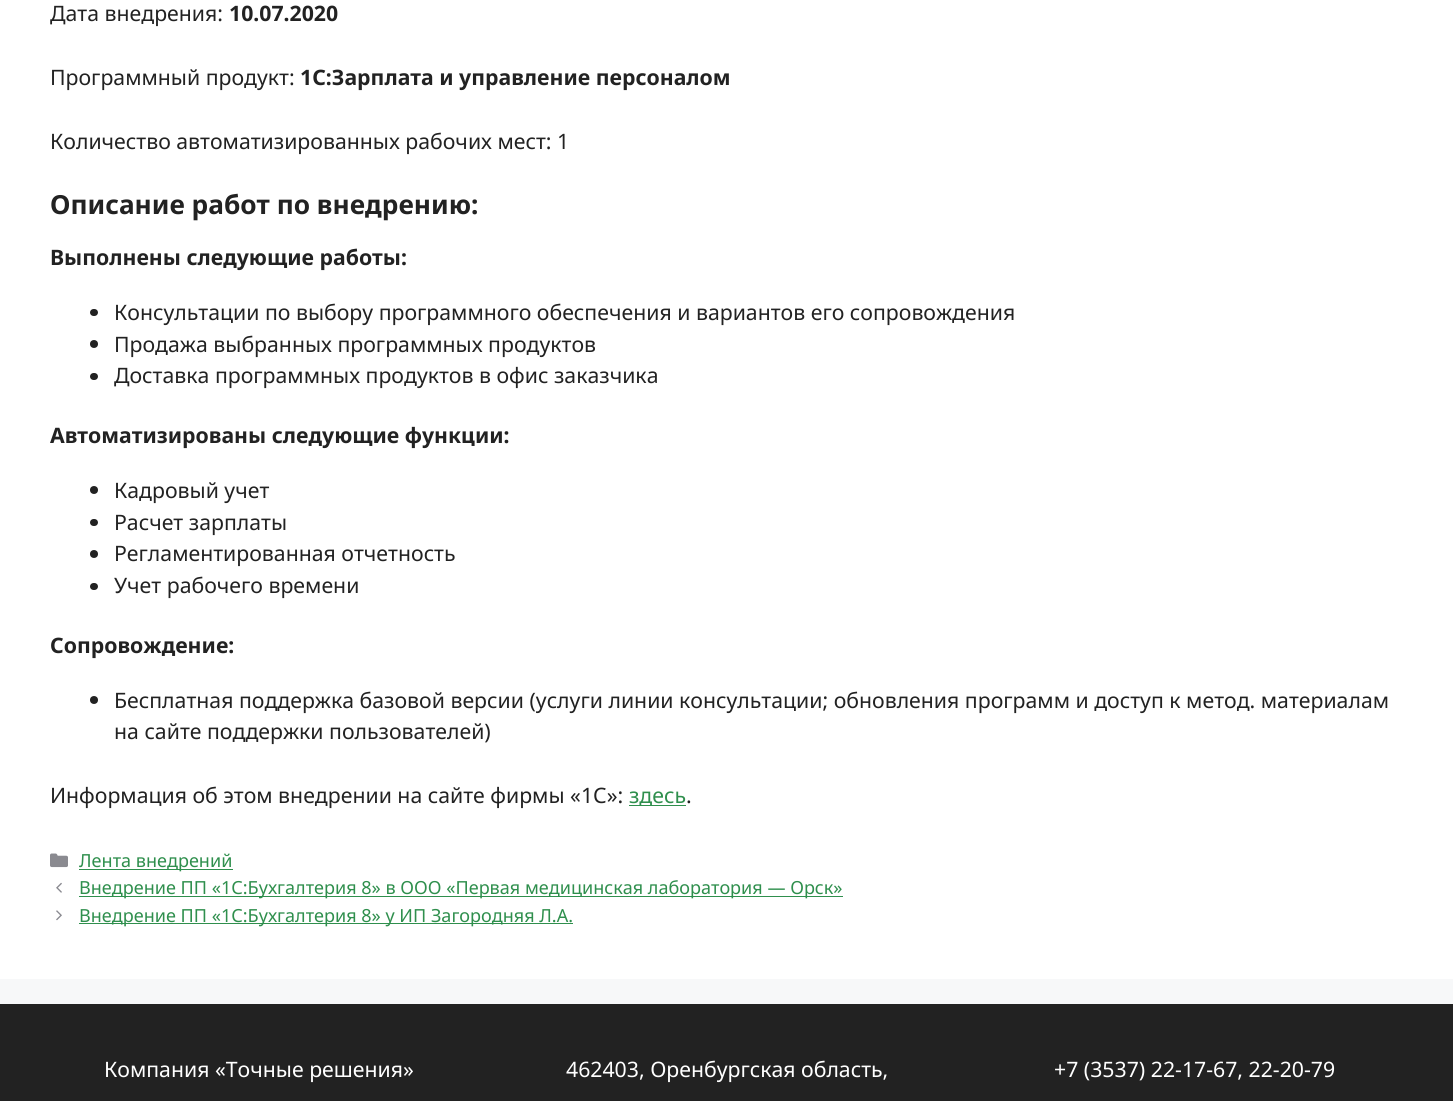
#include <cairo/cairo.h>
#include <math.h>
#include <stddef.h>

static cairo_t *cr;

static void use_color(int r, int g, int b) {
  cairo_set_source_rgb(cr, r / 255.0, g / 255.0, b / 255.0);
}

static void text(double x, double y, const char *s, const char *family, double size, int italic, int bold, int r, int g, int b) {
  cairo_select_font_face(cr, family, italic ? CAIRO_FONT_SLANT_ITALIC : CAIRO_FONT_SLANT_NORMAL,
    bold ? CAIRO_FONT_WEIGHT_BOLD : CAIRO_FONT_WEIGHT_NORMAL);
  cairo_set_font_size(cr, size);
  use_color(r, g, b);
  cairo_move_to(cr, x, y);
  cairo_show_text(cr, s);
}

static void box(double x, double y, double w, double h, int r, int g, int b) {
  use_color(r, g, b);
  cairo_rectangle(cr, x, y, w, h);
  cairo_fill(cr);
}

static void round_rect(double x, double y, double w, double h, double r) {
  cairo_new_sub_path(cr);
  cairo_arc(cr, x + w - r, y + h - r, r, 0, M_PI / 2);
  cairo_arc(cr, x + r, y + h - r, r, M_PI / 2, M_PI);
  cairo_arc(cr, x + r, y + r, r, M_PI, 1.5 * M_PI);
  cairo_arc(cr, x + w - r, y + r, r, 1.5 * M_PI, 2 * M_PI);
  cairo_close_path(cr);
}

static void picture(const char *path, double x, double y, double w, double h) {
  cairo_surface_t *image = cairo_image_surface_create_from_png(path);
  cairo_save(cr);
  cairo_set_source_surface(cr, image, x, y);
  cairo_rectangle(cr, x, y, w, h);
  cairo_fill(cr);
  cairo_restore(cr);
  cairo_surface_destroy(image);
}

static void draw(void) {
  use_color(247, 248, 249);
  cairo_paint(cr);
  box(0, 0, 1453, 979, 255, 255, 255);
  use_color(34, 34, 34);
  round_rect(90, 309, 8, 7, 3.5);
  cairo_fill(cr);
  cairo_arc(cr, 94, 344, 4, 0, 2 * M_PI);
  cairo_fill(cr);
  round_rect(90, 373, 8, 7, 3.5);
  cairo_fill(cr);
  cairo_arc(cr, 94, 490, 4, 0, 2 * M_PI);
  cairo_fill(cr);
  round_rect(90, 519, 8, 7, 3.5);
  cairo_fill(cr);
  cairo_arc(cr, 94, 554, 4, 0, 2 * M_PI);
  cairo_fill(cr);
  round_rect(90, 583, 8, 7, 3.5);
  cairo_fill(cr);
  cairo_arc(cr, 94, 700, 4, 0, 2 * M_PI);
  cairo_fill(cr);
  box(629, 805, 57, 1, 47, 143, 77);
  picture("img_01.png", 50, 853, 18, 15);
  box(79, 869, 154, 1, 47, 143, 77);
  picture("img_02.png", 56, 882, 6, 11);
  box(79, 896, 764, 1, 47, 143, 77);
  picture("img_03.png", 56, 910, 6, 11);
  box(79, 923, 494, 1, 47, 143, 77);
  box(0, 1004, 1453, 97, 34, 34, 34);
  text(50, 21, "Дата внедрения:", "Noto Sans", 21.25, 0, 0, 34, 34, 34);
  text(229, 21, "10.07.2020", "Noto Sans", 21.25, 0, 1, 34, 34, 34);
  text(50, 85, "Программный продукт:", "Noto Sans", 21.25, 0, 0, 34, 34, 34);
  text(300, 85, "1С:Зарплата и управление персоналом", "Noto Sans", 21.25, 0, 1, 34, 34, 34);
  text(50, 149, "Количество автоматизированных рабочих мест: 1", "Noto Sans", 21.25, 0, 0, 34, 34, 34);
  text(50, 214, "Описание работ по внедрению:", "Noto Sans", 26.25, 0, 1, 34, 34, 34);
  text(50, 265, "Выполнены следующие работы:", "Noto Sans", 21.25, 0, 1, 34, 34, 34);
  text(114, 320, "Консультации по выбору программного обеспечения и вариантов его сопровождения", "Noto Sans", 21.25, 0, 0, 34, 34, 34);
  text(114, 352, "Продажа выбранных программных продуктов", "Noto Sans", 21.25, 0, 0, 34, 34, 34);
  text(114, 383, "Доставка программных продуктов в офис заказчика", "Noto Sans", 21.25, 0, 0, 34, 34, 34);
  text(50, 443, "Автоматизированы следующие функции:", "Noto Sans", 21.25, 0, 1, 34, 34, 34);
  text(114, 498, "Кадровый учет", "Noto Sans", 21.25, 0, 0, 34, 34, 34);
  text(114, 530, "Расчет зарплаты", "Noto Sans", 21.25, 0, 0, 34, 34, 34);
  text(114, 561, "Регламентированная отчетность", "Noto Sans", 21.25, 0, 0, 34, 34, 34);
  text(114, 593, "Учет рабочего времени", "Noto Sans", 21.25, 0, 0, 34, 34, 34);
  text(50, 653, "Сопровождение:", "Noto Sans", 21.25, 0, 1, 34, 34, 34);
  text(114, 708, "Бесплатная поддержка базовой версии (услуги линии консультации; обновления программ и доступ к метод. материалам", "Noto Sans", 21.25, 0, 0, 34, 34, 34);
  text(114, 739, "на сайте поддержки пользователей)", "Noto Sans", 21.25, 0, 0, 34, 34, 34);
  text(50, 803, "Информация об этом внедрении на сайте фирмы «1С»:", "Noto Sans", 21.25, 0, 0, 34, 34, 34);
  text(629, 803, "здесь", "Noto Sans", 21.25, 0, 0, 47, 143, 77);
  text(686, 803, ".", "Noto Sans", 21.25, 0, 0, 34, 34, 34);
  text(79, 867, "Лента внедрений", "Noto Sans", 18.05, 0, 0, 47, 143, 77);
  text(79, 894, "Внедрение ПП «1С:Бухгалтерия 8» в ООО «Первая медицинская лаборатория — Орск»", "Noto Sans", 18.05, 0, 0, 47, 143, 77);
  text(79, 922, "Внедрение ПП «1С:Бухгалтерия 8» у ИП Загородняя Л.А.", "Noto Sans", 18.05, 0, 0, 47, 143, 77);
  text(104, 1077, "Компания «Точные решения»", "Noto Sans", 21.25, 0, 0, 255, 255, 255);
  text(566, 1077, "462403, Оренбургская область,", "Noto Sans", 21.25, 0, 0, 255, 255, 255);
  text(1054, 1077, "+7 (3537) 22-17-67, 22-20-79", "Noto Sans", 21.25, 0, 0, 255, 255, 255);
}

int main(void) {
  cairo_surface_t *surface = cairo_image_surface_create(CAIRO_FORMAT_RGB24, 1453, 1101);
  cr = cairo_create(surface);
  cairo_font_options_t *options = cairo_font_options_create();
  cairo_font_options_set_hint_metrics(options, CAIRO_HINT_METRICS_OFF);
  cairo_font_options_set_hint_style(options, CAIRO_HINT_STYLE_NONE);
  cairo_set_font_options(cr, options);
  cairo_set_miter_limit(cr, 4);
  draw();
  cairo_surface_write_to_png(surface, "out.png");
  cairo_font_options_destroy(options);
  cairo_destroy(cr);
  cairo_surface_destroy(surface);
  return 0;
}
